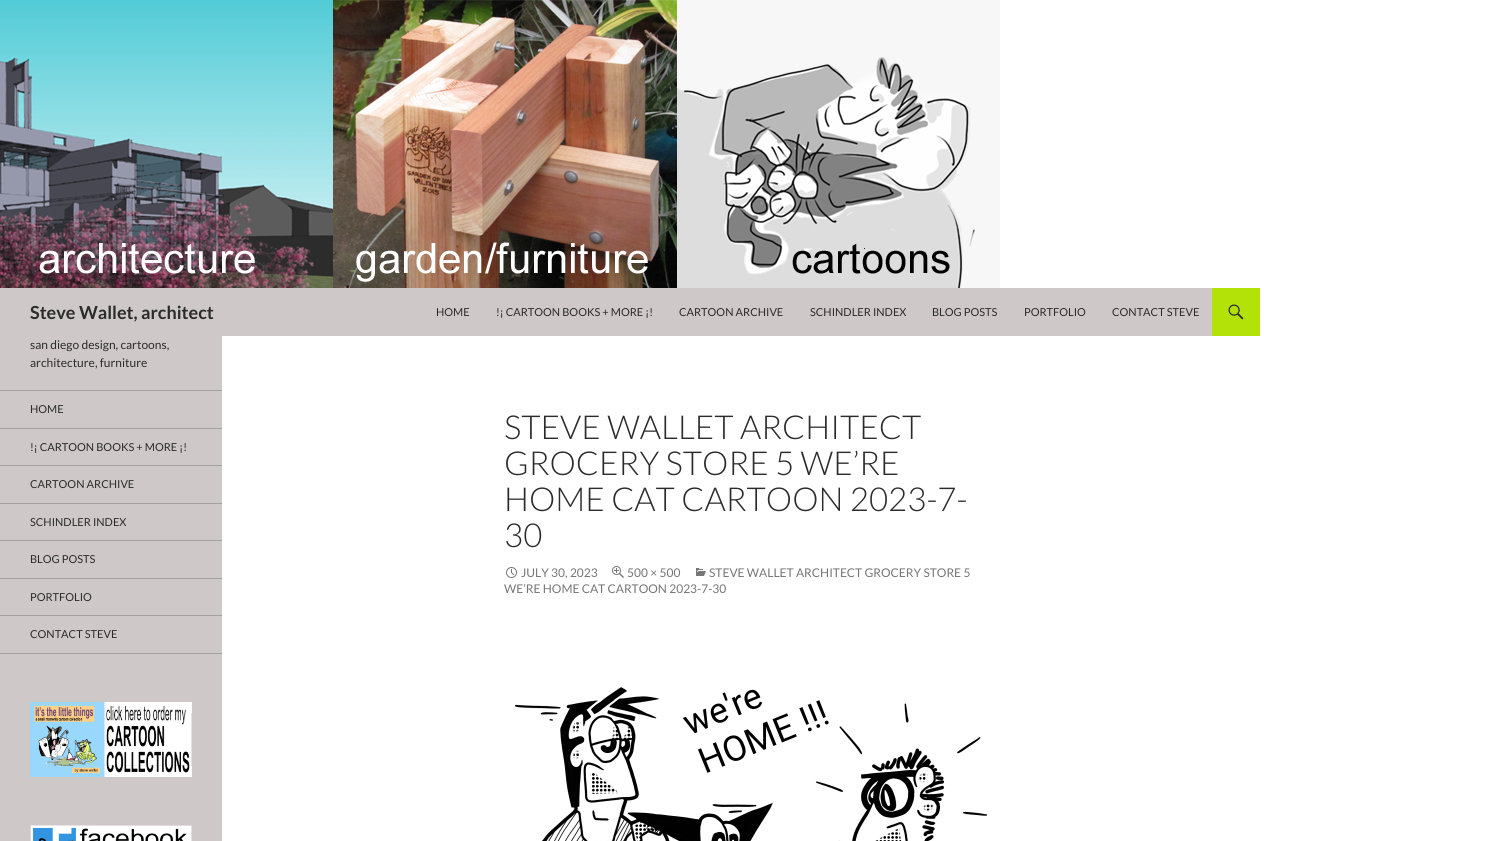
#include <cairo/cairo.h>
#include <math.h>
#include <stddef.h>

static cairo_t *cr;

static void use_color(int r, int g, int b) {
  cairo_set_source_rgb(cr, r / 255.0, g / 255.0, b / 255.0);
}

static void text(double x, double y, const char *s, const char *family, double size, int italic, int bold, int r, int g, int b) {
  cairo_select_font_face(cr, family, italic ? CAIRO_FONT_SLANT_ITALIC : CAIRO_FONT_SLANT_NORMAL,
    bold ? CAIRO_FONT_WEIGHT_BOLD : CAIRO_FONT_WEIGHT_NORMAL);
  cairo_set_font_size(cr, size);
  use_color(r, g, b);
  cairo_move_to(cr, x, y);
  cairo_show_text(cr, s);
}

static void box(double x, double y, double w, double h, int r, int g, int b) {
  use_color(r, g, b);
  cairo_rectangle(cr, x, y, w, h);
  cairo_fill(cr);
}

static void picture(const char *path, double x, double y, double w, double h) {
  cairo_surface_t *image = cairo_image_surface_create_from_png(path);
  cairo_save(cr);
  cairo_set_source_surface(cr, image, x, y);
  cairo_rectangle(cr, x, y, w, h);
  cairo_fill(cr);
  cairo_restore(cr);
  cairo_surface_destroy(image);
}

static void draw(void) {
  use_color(255, 255, 255);
  cairo_paint(cr);
  picture("img_01.png", 0, 0, 1000, 288);
  box(0, 288, 1212, 48, 206, 200, 200);
  box(1212, 288, 48, 48, 179, 226, 9);
  picture("img_02.png", 1228, 304, 16, 16);
  box(0, 336, 222, 505, 206, 200, 200);
  box(0, 653, 222, 1, 165, 160, 160);
  box(0, 390, 222, 1, 165, 160, 160);
  box(0, 428, 222, 1, 165, 160, 160);
  box(0, 465, 222, 1, 165, 160, 160);
  box(0, 503, 222, 1, 165, 160, 160);
  box(0, 540, 222, 1, 165, 160, 160);
  box(0, 578, 222, 1, 165, 160, 160);
  box(0, 615, 222, 1, 165, 160, 160);
  picture("img_03.png", 30, 702, 162, 75);
  picture("img_04.png", 30, 825, 162, 16);
  picture("img_05.png", 696, 568, 10, 8);
  picture("img_06.png", 506, 567, 11, 11);
  picture("img_07.png", 612, 566, 12, 12);
  picture("img_08.png", 514, 687, 474, 154);
  text(30, 319, "Steve Wallet, architect", "Lato", 18, 0, 1, 43, 43, 43);
  text(436, 316, "HOME", "Lato", 11, 0, 0, 43, 43, 43);
  text(496, 316, "!¡ CARTOON BOOKS + MORE ¡!", "Lato", 11, 0, 0, 43, 43, 43);
  text(679, 316, "CARTOON ARCHIVE", "Lato", 11, 0, 0, 43, 43, 43);
  text(810, 316, "SCHINDLER INDEX", "Lato", 11, 0, 0, 43, 43, 43);
  text(932, 316, "BLOG POSTS", "Lato", 11, 0, 0, 43, 43, 43);
  text(1024, 316, "PORTFOLIO", "Lato", 11, 0, 0, 43, 43, 43);
  text(1112, 316, "CONTACT STEVE", "Lato", 11, 0, 0, 43, 43, 43);
  text(30, 349, "san diego design, cartoons,", "Lato", 12, 0, 0, 43, 43, 43);
  text(30, 367, "architecture, furniture", "Lato", 12, 0, 0, 43, 43, 43);
  text(30, 413, "HOME", "Lato", 11, 0, 0, 43, 43, 43);
  text(30, 451, "!¡ CARTOON BOOKS + MORE ¡!", "Lato", 11, 0, 0, 43, 43, 43);
  text(30, 488, "CARTOON ARCHIVE", "Lato", 11, 0, 0, 43, 43, 43);
  text(30, 526, "SCHINDLER INDEX", "Lato", 11, 0, 0, 43, 43, 43);
  text(30, 563, "BLOG POSTS", "Lato", 11, 0, 0, 43, 43, 43);
  text(30, 601, "PORTFOLIO", "Lato", 11, 0, 0, 43, 43, 43);
  text(30, 638, "CONTACT STEVE", "Lato", 11, 0, 0, 43, 43, 43);
  text(504, 439, "STEVE WALLET ARCHITECT", "Lato Light", 33, 0, 0, 43, 43, 43);
  text(504, 475, "GROCERY STORE 5 WE’RE", "Lato Light", 33, 0, 0, 43, 43, 43);
  text(504, 511, "HOME CAT CARTOON 2023-7-", "Lato Light", 33, 0, 0, 43, 43, 43);
  text(504, 547, "30", "Lato Light", 33, 0, 0, 43, 43, 43);
  text(709, 577, "STEVE WALLET ARCHITECT GROCERY STORE 5", "Lato", 12, 0, 0, 118, 118, 118);
  text(504, 593, "WE’RE HOME CAT CARTOON 2023-7-30", "Lato", 12, 0, 0, 118, 118, 118);
  text(521, 577, "JULY 30, 2023", "Lato", 12, 0, 0, 118, 118, 118);
  text(627, 577, "500 × 500", "Lato", 12, 0, 0, 118, 118, 118);
}

int main(void) {
  cairo_surface_t *surface = cairo_image_surface_create(CAIRO_FORMAT_RGB24, 1510, 841);
  cr = cairo_create(surface);
  cairo_font_options_t *options = cairo_font_options_create();
  cairo_font_options_set_hint_metrics(options, CAIRO_HINT_METRICS_OFF);
  cairo_font_options_set_hint_style(options, CAIRO_HINT_STYLE_NONE);
  cairo_set_font_options(cr, options);
  cairo_set_miter_limit(cr, 4);
  draw();
  cairo_surface_write_to_png(surface, "out.png");
  cairo_font_options_destroy(options);
  cairo_destroy(cr);
  cairo_surface_destroy(surface);
  return 0;
}
